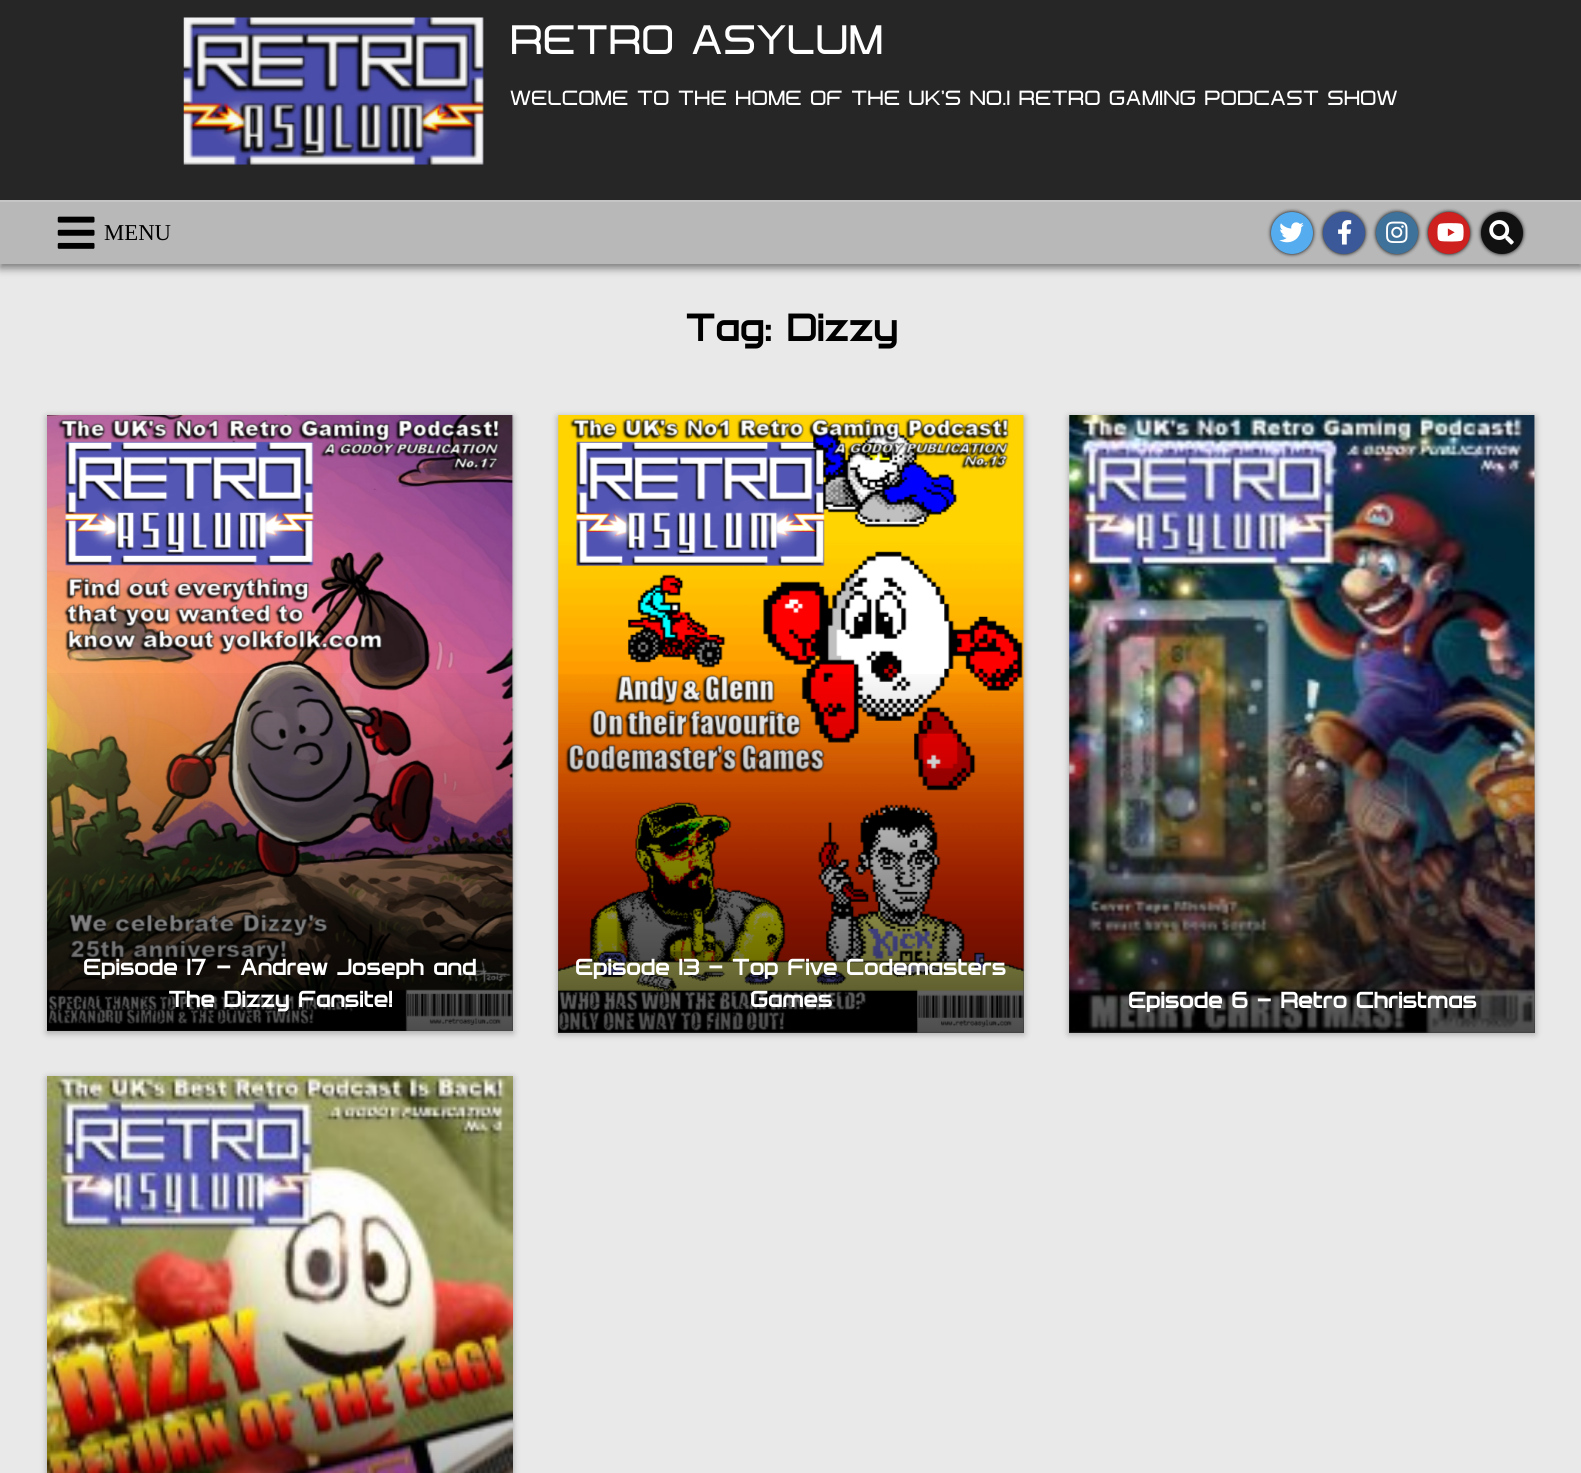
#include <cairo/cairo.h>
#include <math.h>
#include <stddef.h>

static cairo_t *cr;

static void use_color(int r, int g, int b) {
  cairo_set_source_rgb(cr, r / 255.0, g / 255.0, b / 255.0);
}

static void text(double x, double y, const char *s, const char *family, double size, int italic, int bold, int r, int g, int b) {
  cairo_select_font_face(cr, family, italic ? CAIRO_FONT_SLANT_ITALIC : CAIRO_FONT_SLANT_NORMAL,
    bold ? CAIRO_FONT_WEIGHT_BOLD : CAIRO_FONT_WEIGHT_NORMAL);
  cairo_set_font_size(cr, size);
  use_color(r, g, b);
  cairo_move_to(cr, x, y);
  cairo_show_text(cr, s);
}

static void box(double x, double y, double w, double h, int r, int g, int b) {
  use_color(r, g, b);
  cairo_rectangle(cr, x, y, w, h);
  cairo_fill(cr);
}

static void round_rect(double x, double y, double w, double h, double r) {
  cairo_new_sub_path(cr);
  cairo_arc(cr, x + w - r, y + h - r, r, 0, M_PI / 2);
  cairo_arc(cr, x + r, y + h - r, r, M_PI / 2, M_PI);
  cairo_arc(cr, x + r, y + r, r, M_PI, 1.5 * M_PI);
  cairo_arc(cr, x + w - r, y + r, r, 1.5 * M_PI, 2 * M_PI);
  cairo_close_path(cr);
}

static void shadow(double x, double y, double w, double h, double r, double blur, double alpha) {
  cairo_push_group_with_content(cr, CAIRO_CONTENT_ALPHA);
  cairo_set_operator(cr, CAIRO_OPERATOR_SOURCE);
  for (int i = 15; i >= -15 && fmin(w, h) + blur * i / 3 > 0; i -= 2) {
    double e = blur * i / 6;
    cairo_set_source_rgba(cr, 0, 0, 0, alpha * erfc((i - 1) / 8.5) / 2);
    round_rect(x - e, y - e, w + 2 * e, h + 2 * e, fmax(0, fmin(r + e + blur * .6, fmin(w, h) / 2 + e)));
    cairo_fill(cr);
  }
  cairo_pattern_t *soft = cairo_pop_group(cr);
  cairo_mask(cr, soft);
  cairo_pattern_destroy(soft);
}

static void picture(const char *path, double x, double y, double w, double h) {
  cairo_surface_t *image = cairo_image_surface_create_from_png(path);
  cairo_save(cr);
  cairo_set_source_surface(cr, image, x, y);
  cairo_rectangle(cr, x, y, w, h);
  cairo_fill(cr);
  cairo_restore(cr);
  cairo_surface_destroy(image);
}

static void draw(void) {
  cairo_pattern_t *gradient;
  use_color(233, 233, 233);
  cairo_paint(cr);
  use_color(0, 0, 0);
  shadow(0, 203, 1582, 65, 0, 4.5, 0.5);
  box(0, 0, 1581, 200, 38, 38, 38);
  picture("img_01.png", 183, 17, 301, 148);
  box(0, 202, 1581, 62, 184, 184, 184);
  box(0, 200, 1581, 2, 197, 197, 197);
  picture("img_02.png", 57, 216, 38, 33);
  use_color(0, 0, 0);
  shadow(1271, 212, 42, 42, 21, 2, 1);
  use_color(85, 172, 238);
  cairo_arc(cr, 1292, 233, 21, 0, 2 * M_PI);
  cairo_fill(cr);
  picture("img_03.png", 1279, 222, 25, 21);
  use_color(0, 0, 0);
  shadow(1323, 212, 42, 42, 21, 2, 1);
  use_color(59, 89, 152);
  cairo_arc(cr, 1344, 233, 21, 0, 2 * M_PI);
  cairo_fill(cr);
  picture("img_04.png", 1338, 220, 14, 25);
  use_color(0, 0, 0);
  shadow(1376, 212, 42, 42, 21, 2, 1);
  use_color(63, 114, 155);
  cairo_arc(cr, 1397, 233, 21, 0, 2 * M_PI);
  cairo_fill(cr);
  picture("img_05.png", 1386, 221, 22, 22);
  use_color(0, 0, 0);
  shadow(1428, 212, 42, 42, 21, 2, 1);
  use_color(205, 32, 31);
  cairo_arc(cr, 1449, 233, 21, 0, 2 * M_PI);
  cairo_fill(cr);
  picture("img_06.png", 1437, 223, 27, 19);
  use_color(0, 0, 0);
  shadow(1481, 212, 42, 42, 21, 2, 1);
  use_color(17, 17, 17);
  cairo_arc(cr, 1502, 233, 21, 0, 2 * M_PI);
  cairo_fill(cr);
  picture("img_07.png", 1489, 220, 25, 25);
  use_color(0, 0, 0);
  shadow(47, 417, 466, 616, 0, 3.5, 0.3);
  picture("img_08.png", 47, 415, 467, 616);
  gradient = cairo_pattern_create_linear(280, 1031, 280, 415);
  cairo_pattern_add_color_stop_rgba(gradient, 0, 0, 0, 0, 0.7);
  cairo_pattern_add_color_stop_rgba(gradient, 0.6, 0, 0, 0, 0);
  cairo_pattern_add_color_stop_rgba(gradient, 1, 0, 0, 0, 0);
  cairo_set_source(cr, gradient);
  cairo_pattern_destroy(gradient);
  cairo_rectangle(cr, 47, 673, 466, 358);
  cairo_fill(cr);
  use_color(0, 0, 0);
  shadow(558, 417, 466, 617, 0, 3.5, 0.3);
  picture("img_09.png", 558, 415, 467, 618);
  gradient = cairo_pattern_create_linear(791, 1033, 791, 415);
  cairo_pattern_add_color_stop_rgba(gradient, 0, 0, 0, 0, 0.7);
  cairo_pattern_add_color_stop_rgba(gradient, 0.6, 0, 0, 0, 0);
  cairo_pattern_add_color_stop_rgba(gradient, 1, 0, 0, 0, 0);
  cairo_set_source(cr, gradient);
  cairo_pattern_destroy(gradient);
  cairo_rectangle(cr, 558, 674, 466, 359);
  cairo_fill(cr);
  use_color(0, 0, 0);
  shadow(1069, 417, 466, 617, 0, 3.5, 0.3);
  picture("img_10.png", 1069, 415, 466, 618);
  gradient = cairo_pattern_create_linear(1302, 1033, 1302, 415);
  cairo_pattern_add_color_stop_rgba(gradient, 0, 0, 0, 0, 0.7);
  cairo_pattern_add_color_stop_rgba(gradient, 0.6, 0, 0, 0, 0);
  cairo_pattern_add_color_stop_rgba(gradient, 1, 0, 0, 0, 0);
  cairo_set_source(cr, gradient);
  cairo_pattern_destroy(gradient);
  cairo_rectangle(cr, 1069, 674, 466, 359);
  cairo_fill(cr);
  use_color(0, 0, 0);
  shadow(47, 1078, 466, 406, 0, 3.5, 0.3);
  picture("img_11.png", 47, 1076, 466, 397);
  text(510, 54, "RETRO ASYLUM", "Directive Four", 42, 0, 0, 255, 255, 255);
  text(510, 105, "WELCOME TO THE HOME OF THE UK'S NO.1 RETRO GAMING PODCAST SHOW", "Directive Four", 21, 0, 0, 255, 255, 255);
  text(104, 240, "MENU", "Liberation Serif", 22.75, 0, 0, 0, 0, 0);
  text(685, 341, "Tag: Dizzy", "Directive Four", 38.5, 0, 1, 0, 0, 0);
  text(83, 975, "Episode 17 – Andrew Joseph and", "Directive Four", 22.75, 0, 1, 255, 255, 255);
  text(168, 1007, "The Dizzy Fansite!", "Directive Four", 22.75, 0, 1, 255, 255, 255);
  text(575, 975, "Episode 13 – Top Five Codemasters", "Directive Four", 22.75, 0, 1, 255, 255, 255);
  text(750, 1007, "Games", "Directive Four", 22.75, 0, 1, 255, 255, 255);
  text(1128, 1008, "Episode 6 – Retro Christmas", "Directive Four", 22.75, 0, 1, 255, 255, 255);
}

int main(void) {
  cairo_surface_t *surface = cairo_image_surface_create(CAIRO_FORMAT_RGB24, 1581, 1473);
  cr = cairo_create(surface);
  cairo_font_options_t *options = cairo_font_options_create();
  cairo_font_options_set_hint_metrics(options, CAIRO_HINT_METRICS_OFF);
  cairo_font_options_set_hint_style(options, CAIRO_HINT_STYLE_NONE);
  cairo_set_font_options(cr, options);
  cairo_set_miter_limit(cr, 4);
  draw();
  cairo_surface_write_to_png(surface, "out.png");
  cairo_font_options_destroy(options);
  cairo_destroy(cr);
  cairo_surface_destroy(surface);
  return 0;
}
